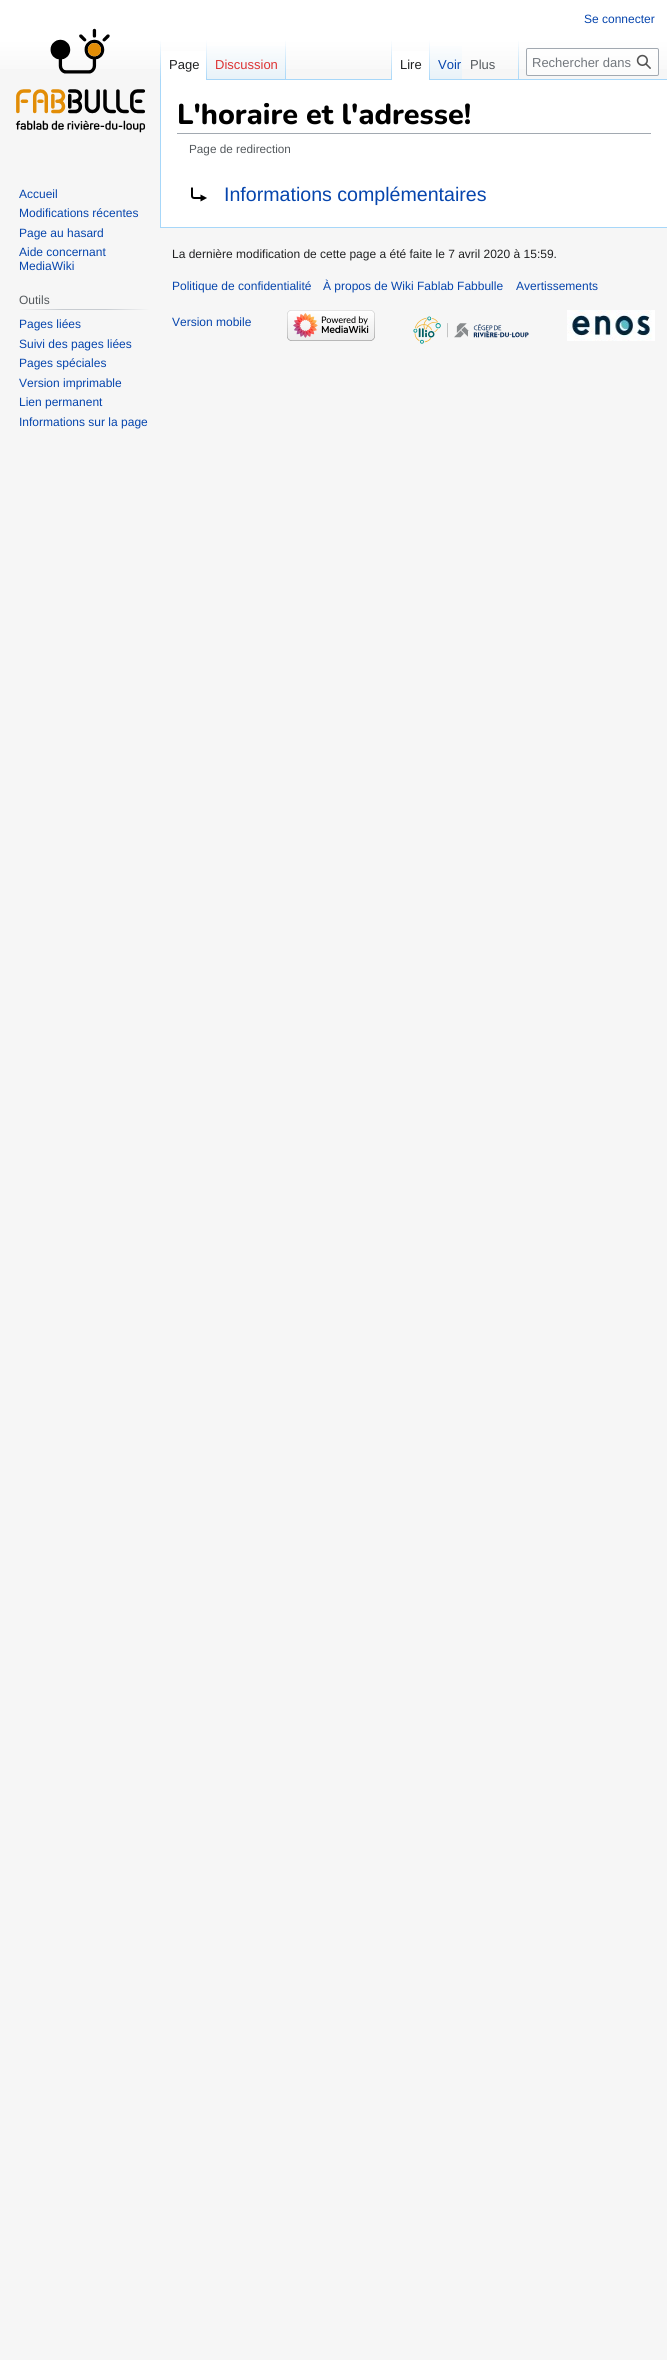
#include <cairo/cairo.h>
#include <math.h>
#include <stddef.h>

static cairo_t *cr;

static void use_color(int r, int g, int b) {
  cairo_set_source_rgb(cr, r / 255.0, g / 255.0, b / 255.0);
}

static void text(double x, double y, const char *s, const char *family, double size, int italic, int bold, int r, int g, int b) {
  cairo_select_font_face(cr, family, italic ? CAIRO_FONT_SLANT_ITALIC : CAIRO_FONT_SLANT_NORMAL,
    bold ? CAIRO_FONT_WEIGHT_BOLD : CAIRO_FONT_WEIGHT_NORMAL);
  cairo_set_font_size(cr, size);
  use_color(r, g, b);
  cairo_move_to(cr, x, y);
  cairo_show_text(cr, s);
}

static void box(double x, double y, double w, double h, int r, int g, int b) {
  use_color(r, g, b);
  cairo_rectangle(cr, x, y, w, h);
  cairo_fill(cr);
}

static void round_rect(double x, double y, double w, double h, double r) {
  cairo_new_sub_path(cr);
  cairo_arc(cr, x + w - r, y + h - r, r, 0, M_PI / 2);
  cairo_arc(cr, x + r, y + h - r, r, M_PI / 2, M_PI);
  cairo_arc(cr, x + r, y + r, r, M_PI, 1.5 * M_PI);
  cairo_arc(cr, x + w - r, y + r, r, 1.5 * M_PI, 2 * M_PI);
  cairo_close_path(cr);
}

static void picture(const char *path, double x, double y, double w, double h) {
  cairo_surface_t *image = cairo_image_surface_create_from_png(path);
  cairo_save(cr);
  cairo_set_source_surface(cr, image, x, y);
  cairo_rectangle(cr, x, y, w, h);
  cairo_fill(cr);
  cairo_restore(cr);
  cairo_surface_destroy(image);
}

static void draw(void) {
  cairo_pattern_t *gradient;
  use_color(246, 246, 246);
  cairo_paint(cr);
  gradient = cairo_pattern_create_linear(334, 0, 334, 80);
  cairo_pattern_add_color_stop_rgba(gradient, 0.5, 1, 1, 1, 1);
  cairo_pattern_add_color_stop_rgba(gradient, 1, 0.965, 0.965, 0.965, 1);
  cairo_set_source(cr, gradient);
  cairo_pattern_destroy(gradient);
  cairo_rectangle(cr, 0, 0, 667, 69);
  cairo_fill(cr);
  box(160, 227, 507, 1, 167, 215, 249);
  box(160, 79, 1, 149, 167, 215, 249);
  gradient = cairo_pattern_create_linear(161, 40, 161, 80);
  cairo_pattern_add_color_stop_rgba(gradient, 0, 0.655, 0.843, 0.976, 0);
  cairo_pattern_add_color_stop_rgba(gradient, 1, 0.655, 0.843, 0.976, 1);
  cairo_set_source(cr, gradient);
  cairo_pattern_destroy(gradient);
  cairo_rectangle(cr, 160, 40, 1, 40);
  cairo_fill(cr);
  box(161, 51, 45, 29, 255, 255, 255);
  gradient = cairo_pattern_create_linear(207, 40, 207, 80);
  cairo_pattern_add_color_stop_rgba(gradient, 0, 1, 1, 1, 1);
  cairo_pattern_add_color_stop_rgba(gradient, 1, 0.655, 0.843, 0.976, 1);
  cairo_set_source(cr, gradient);
  cairo_pattern_destroy(gradient);
  cairo_rectangle(cr, 206, 40, 1, 40);
  cairo_fill(cr);
  gradient = cairo_pattern_create_linear(247, 80, 247, 40);
  cairo_pattern_add_color_stop_rgba(gradient, 0, 0.467, 0.757, 0.965, 1);
  cairo_pattern_add_color_stop_rgba(gradient, 0.03, 0.91, 0.949, 0.973, 1);
  cairo_pattern_add_color_stop_rgba(gradient, 1, 1, 1, 1, 1);
  cairo_set_source(cr, gradient);
  cairo_pattern_destroy(gradient);
  cairo_rectangle(cr, 207, 46, 79, 34);
  cairo_fill(cr);
  gradient = cairo_pattern_create_linear(286, 40, 286, 80);
  cairo_pattern_add_color_stop_rgba(gradient, 0, 0.655, 0.843, 0.976, 0);
  cairo_pattern_add_color_stop_rgba(gradient, 1, 0.655, 0.843, 0.976, 1);
  cairo_set_source(cr, gradient);
  cairo_pattern_destroy(gradient);
  cairo_rectangle(cr, 285, 40, 1, 40);
  cairo_fill(cr);
  box(286, 79, 381, 1, 167, 215, 249);
  gradient = cairo_pattern_create_linear(392, 40, 392, 80);
  cairo_pattern_add_color_stop_rgba(gradient, 0, 0.655, 0.843, 0.976, 0);
  cairo_pattern_add_color_stop_rgba(gradient, 1, 0.655, 0.843, 0.976, 1);
  cairo_set_source(cr, gradient);
  cairo_pattern_destroy(gradient);
  cairo_rectangle(cr, 391, 40, 1, 40);
  cairo_fill(cr);
  box(392, 51, 37, 29, 255, 255, 255);
  gradient = cairo_pattern_create_linear(430, 40, 430, 80);
  cairo_pattern_add_color_stop_rgba(gradient, 0, 1, 1, 1, 1);
  cairo_pattern_add_color_stop_rgba(gradient, 1, 0.655, 0.843, 0.976, 1);
  cairo_set_source(cr, gradient);
  cairo_pattern_destroy(gradient);
  cairo_rectangle(cr, 429, 40, 1, 40);
  cairo_fill(cr);
  gradient = cairo_pattern_create_linear(446, 80, 446, 40);
  cairo_pattern_add_color_stop_rgba(gradient, 0, 0.467, 0.757, 0.965, 1);
  cairo_pattern_add_color_stop_rgba(gradient, 0.03, 0.91, 0.949, 0.973, 1);
  cairo_pattern_add_color_stop_rgba(gradient, 1, 1, 1, 1, 1);
  cairo_set_source(cr, gradient);
  cairo_pattern_destroy(gradient);
  cairo_rectangle(cr, 430, 46, 32, 33);
  cairo_fill(cr);
  gradient = cairo_pattern_create_linear(519, 40, 519, 80);
  cairo_pattern_add_color_stop_rgba(gradient, 0, 0.655, 0.843, 0.976, 0);
  cairo_pattern_add_color_stop_rgba(gradient, 1, 0.655, 0.843, 0.976, 1);
  cairo_set_source(cr, gradient);
  cairo_pattern_destroy(gradient);
  cairo_rectangle(cr, 518, 40, 1, 40);
  cairo_fill(cr);
  cairo_set_source_rgba(cr, 1, 1, 1, 0.5);
  round_rect(526.5, 48.5, 132, 27, 1.5);
  cairo_fill_preserve(cr);
  use_color(162, 169, 177);
  cairo_set_line_width(cr, 1);
  cairo_stroke(cr);
  picture("img_01.png", 636, 54, 15, 15);
  picture("img_02.png", 15, 28, 131, 105);
  gradient = cairo_pattern_create_linear(19, 310, 150, 310);
  cairo_pattern_add_color_stop_rgba(gradient, 0, 0.965, 0.965, 0.965, 1);
  cairo_pattern_add_color_stop_rgba(gradient, 0.33, 0.784, 0.8, 0.82, 1);
  cairo_pattern_add_color_stop_rgba(gradient, 0.66, 0.784, 0.8, 0.82, 1);
  cairo_pattern_add_color_stop_rgba(gradient, 1, 0.965, 0.965, 0.965, 1);
  cairo_set_source(cr, gradient);
  cairo_pattern_destroy(gradient);
  cairo_rectangle(cr, 19, 309, 131, 1);
  cairo_fill(cr);
  box(161, 80, 506, 147, 255, 255, 255);
  box(177, 133, 474, 1, 162, 169, 177);
  picture("img_03.png", 191, 187, 16, 15);
  picture("img_04.png", 287, 310, 88, 31);
  picture("img_05.png", 413, 316, 116, 28);
  picture("img_06.png", 567, 310, 88, 31);
  text(584, 23, "Se connecter", "Liberation Sans", 12, 0, 0, 6, 69, 173);
  text(169, 69, "Page", "Liberation Sans", 13, 0, 0, 32, 33, 34);
  text(215, 69, "Discussion", "Liberation Sans", 13, 0, 0, 221, 51, 51);
  text(400, 69, "Lire", "Liberation Sans", 13, 0, 0, 32, 33, 34);
  text(438, 69, "Voir", "Liberation Sans", 13, 0, 0, 6, 69, 173);
  text(470, 69, "Plus", "Liberation Sans", 13, 0, 0, 84, 89, 93);
  text(532, 67, "Rechercher dans", "Liberation Sans", 13, 0, 0, 114, 119, 125);
  text(19, 198, "Accueil", "Liberation Sans", 12, 0, 0, 6, 69, 173);
  text(19, 217, "Modifications récentes", "Liberation Sans", 12, 0, 0, 6, 69, 173);
  text(19, 237, "Page au hasard", "Liberation Sans", 12, 0, 0, 6, 69, 173);
  text(19, 256, "Aide concernant", "Liberation Sans", 12, 0, 0, 6, 69, 173);
  text(19, 270, "MediaWiki", "Liberation Sans", 12, 0, 0, 6, 69, 173);
  text(19, 304, "Outils", "Liberation Sans", 12, 0, 0, 84, 89, 93);
  text(19, 328, "Pages liées", "Liberation Sans", 12, 0, 0, 6, 69, 173);
  text(19, 348, "Suivi des pages liées", "Liberation Sans", 12, 0, 0, 6, 69, 173);
  text(19, 367, "Pages spéciales", "Liberation Sans", 12, 0, 0, 6, 69, 173);
  text(19, 387, "Version imprimable", "Liberation Sans", 12, 0, 0, 6, 69, 173);
  text(19, 406, "Lien permanent", "Liberation Sans", 12, 0, 0, 6, 69, 173);
  text(19, 426, "Informations sur la page", "Liberation Sans", 12, 0, 0, 6, 69, 173);
  text(177, 124, "L'horaire et l'adresse!", "Nunito ExtraBold", 28.75, 0, 0, 0, 0, 0);
  text(189, 153, "Page de redirection", "Liberation Sans", 11.75, 0, 0, 84, 89, 93);
  text(224, 201, "Informations complémentaires", "Liberation Sans", 19.6, 0, 0, 6, 69, 173);
  text(172, 258, "La dernière modification de cette page a été faite le 7 avril 2020 à 15:59.", "Liberation Sans", 12, 0, 0, 32, 33, 34);
  text(172, 290, "Politique de confidentialité", "Liberation Sans", 12, 0, 0, 6, 69, 173);
  text(323, 290, "À propos de Wiki Fablab Fabbulle", "Liberation Sans", 12, 0, 0, 6, 69, 173);
  text(516, 290, "Avertissements", "Liberation Sans", 12, 0, 0, 6, 69, 173);
  text(172, 326, "Version mobile", "Liberation Sans", 12, 0, 0, 6, 69, 173);
}

int main(void) {
  cairo_surface_t *surface = cairo_image_surface_create(CAIRO_FORMAT_RGB24, 667, 2360);
  cr = cairo_create(surface);
  cairo_font_options_t *options = cairo_font_options_create();
  cairo_font_options_set_hint_metrics(options, CAIRO_HINT_METRICS_OFF);
  cairo_font_options_set_hint_style(options, CAIRO_HINT_STYLE_NONE);
  cairo_set_font_options(cr, options);
  cairo_set_miter_limit(cr, 4);
  draw();
  cairo_surface_write_to_png(surface, "out.png");
  cairo_font_options_destroy(options);
  cairo_destroy(cr);
  cairo_surface_destroy(surface);
  return 0;
}
